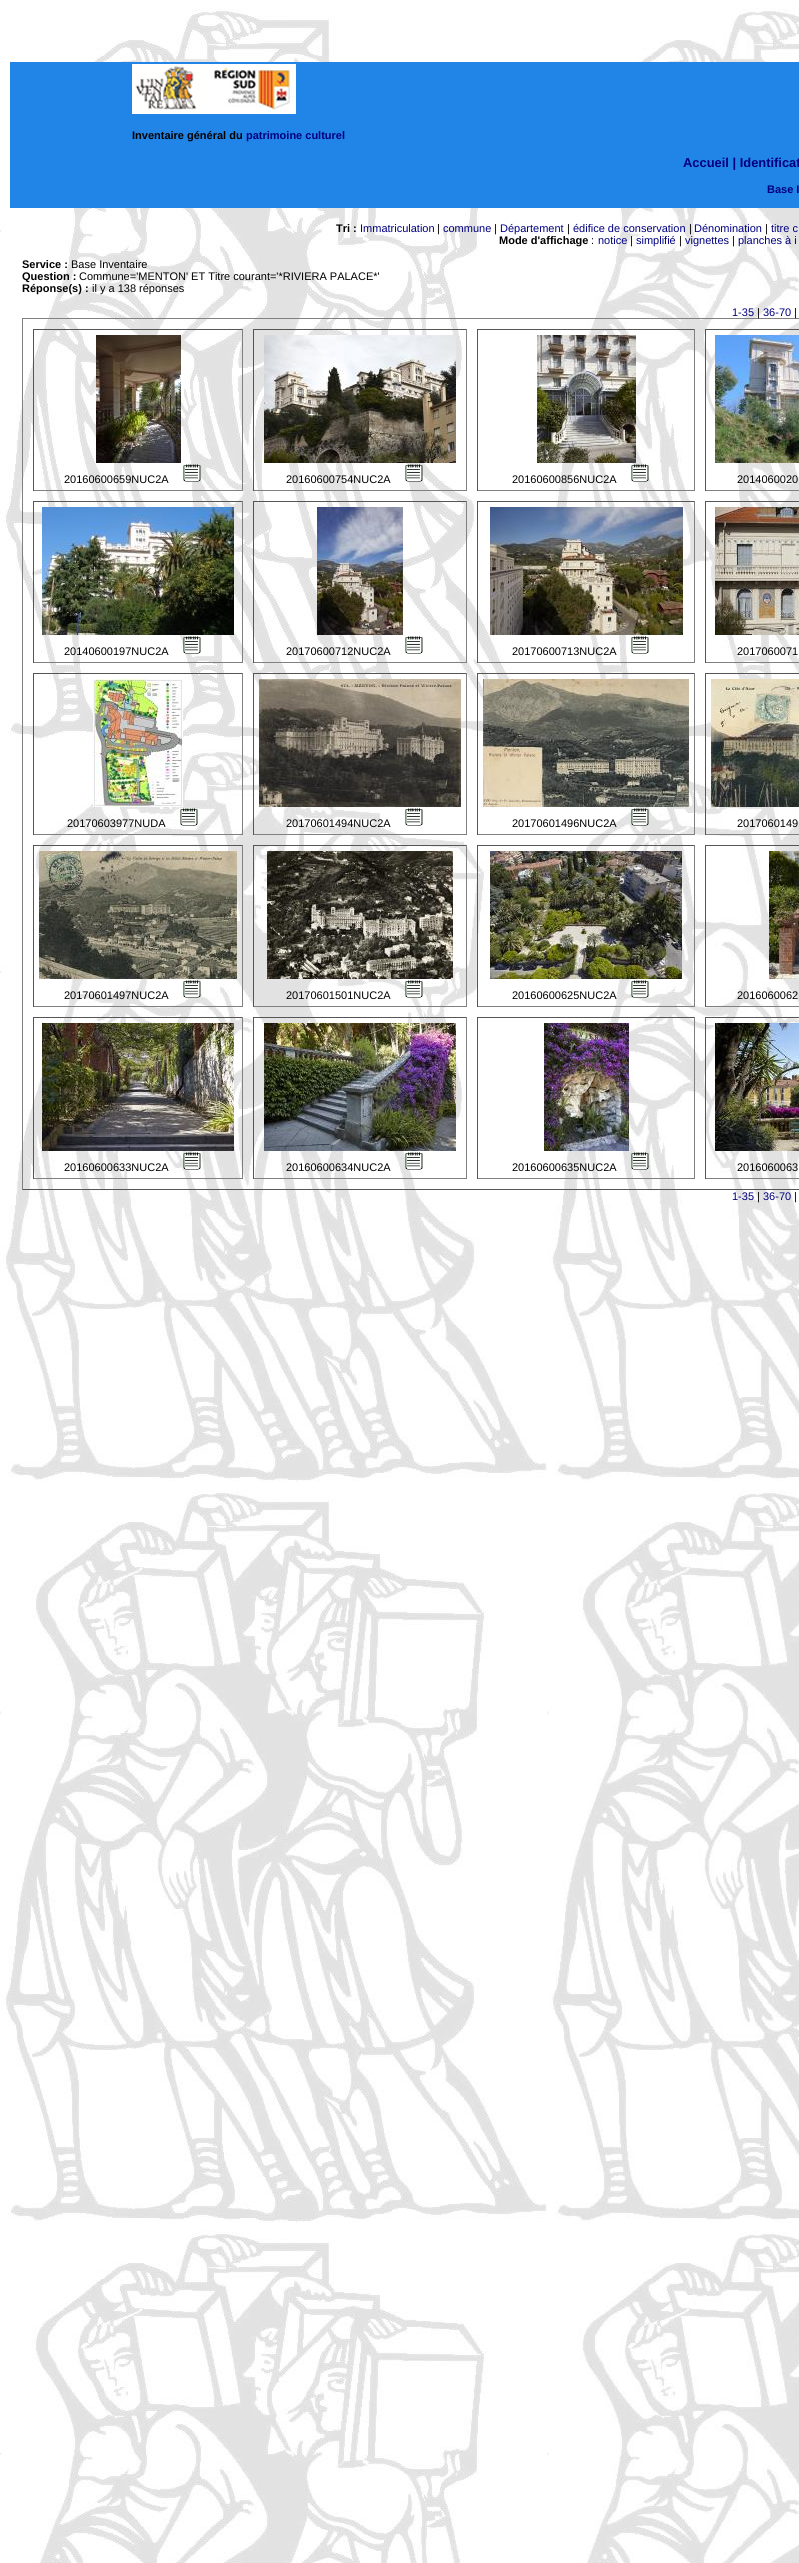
#include <cairo/cairo.h>
#include <math.h>
#include <stddef.h>

static cairo_t *cr;

static void use_color(int r, int g, int b) {
  cairo_set_source_rgb(cr, r / 255.0, g / 255.0, b / 255.0);
}

static void text(double x, double y, const char *s, const char *family, double size, int italic, int bold, int r, int g, int b) {
  cairo_select_font_face(cr, family, italic ? CAIRO_FONT_SLANT_ITALIC : CAIRO_FONT_SLANT_NORMAL,
    bold ? CAIRO_FONT_WEIGHT_BOLD : CAIRO_FONT_WEIGHT_NORMAL);
  cairo_set_font_size(cr, size);
  use_color(r, g, b);
  cairo_move_to(cr, x, y);
  cairo_show_text(cr, s);
}

static void box(double x, double y, double w, double h, int r, int g, int b) {
  use_color(r, g, b);
  cairo_rectangle(cr, x, y, w, h);
  cairo_fill(cr);
}

static void picture(const char *path, double x, double y, double w, double h) {
  cairo_surface_t *image = cairo_image_surface_create_from_png(path);
  cairo_save(cr);
  cairo_set_source_surface(cr, image, x, y);
  cairo_rectangle(cr, x, y, w, h);
  cairo_fill(cr);
  cairo_restore(cr);
  cairo_surface_destroy(image);
}

static void draw(void) {
  use_color(255, 255, 255);
  cairo_paint(cr);
  picture("img_01.png", 0, 8, 799, 2555);
  box(10, 62, 789, 146, 33, 132, 231);
  picture("img_02.png", 132, 64, 164, 50);
  box(22, 318, 777, 1, 128, 128, 128);
  box(22, 1189, 777, 1, 85, 85, 85);
  box(22, 318, 1, 872, 128, 128, 128);
  box(33, 329, 210, 1, 85, 85, 85);
  box(242, 329, 1, 162, 128, 128, 128);
  box(33, 490, 210, 1, 128, 128, 128);
  box(33, 329, 1, 162, 85, 85, 85);
  picture("img_03.png", 96, 335, 85, 128);
  picture("img_04.png", 183, 464, 18, 18);
  box(253, 329, 214, 1, 85, 85, 85);
  box(466, 329, 1, 162, 128, 128, 128);
  box(253, 490, 214, 1, 128, 128, 128);
  box(253, 329, 1, 162, 85, 85, 85);
  picture("img_05.png", 264, 335, 192, 128);
  picture("img_06.png", 405, 464, 18, 18);
  box(477, 329, 218, 1, 85, 85, 85);
  box(694, 329, 1, 162, 128, 128, 128);
  box(477, 490, 218, 1, 128, 128, 128);
  box(477, 329, 1, 162, 85, 85, 85);
  picture("img_07.png", 537, 335, 99, 128);
  picture("img_08.png", 631, 464, 18, 18);
  box(705, 329, 94, 1, 85, 85, 85);
  box(705, 490, 94, 1, 128, 128, 128);
  box(705, 329, 1, 162, 85, 85, 85);
  picture("img_09.png", 715, 335, 84, 128);
  box(33, 501, 210, 1, 85, 85, 85);
  box(242, 501, 1, 162, 128, 128, 128);
  box(33, 662, 210, 1, 128, 128, 128);
  box(33, 501, 1, 162, 85, 85, 85);
  picture("img_10.png", 42, 507, 192, 128);
  picture("img_11.png", 183, 636, 18, 18);
  box(253, 501, 214, 1, 85, 85, 85);
  box(466, 501, 1, 162, 128, 128, 128);
  box(253, 662, 214, 1, 128, 128, 128);
  box(253, 501, 1, 162, 85, 85, 85);
  picture("img_12.png", 317, 507, 86, 128);
  picture("img_13.png", 405, 636, 18, 18);
  box(477, 501, 218, 1, 85, 85, 85);
  box(694, 501, 1, 162, 128, 128, 128);
  box(477, 662, 218, 1, 128, 128, 128);
  box(477, 501, 1, 162, 85, 85, 85);
  picture("img_14.png", 490, 507, 193, 128);
  picture("img_13.png", 631, 636, 18, 18);
  box(705, 501, 94, 1, 85, 85, 85);
  box(705, 662, 94, 1, 128, 128, 128);
  box(705, 501, 1, 162, 85, 85, 85);
  picture("img_15.png", 715, 507, 84, 128);
  box(33, 673, 210, 1, 85, 85, 85);
  box(242, 673, 1, 162, 128, 128, 128);
  box(33, 834, 210, 1, 128, 128, 128);
  box(33, 673, 1, 162, 85, 85, 85);
  picture("img_16.png", 93, 679, 90, 128);
  picture("img_17.png", 180, 808, 18, 18);
  box(253, 673, 214, 1, 85, 85, 85);
  box(466, 673, 1, 162, 128, 128, 128);
  box(253, 834, 214, 1, 128, 128, 128);
  box(253, 673, 1, 162, 85, 85, 85);
  picture("img_18.png", 259, 679, 202, 128);
  picture("img_13.png", 405, 808, 18, 18);
  box(477, 673, 218, 1, 85, 85, 85);
  box(694, 673, 1, 162, 128, 128, 128);
  box(477, 834, 218, 1, 128, 128, 128);
  box(477, 673, 1, 162, 85, 85, 85);
  picture("img_19.png", 483, 679, 206, 128);
  picture("img_20.png", 631, 808, 18, 18);
  box(705, 673, 94, 1, 85, 85, 85);
  box(705, 834, 94, 1, 128, 128, 128);
  box(705, 673, 1, 162, 85, 85, 85);
  picture("img_21.png", 711, 679, 88, 128);
  box(33, 845, 210, 1, 85, 85, 85);
  box(242, 845, 1, 162, 128, 128, 128);
  box(33, 1006, 210, 1, 128, 128, 128);
  box(33, 845, 1, 162, 85, 85, 85);
  picture("img_22.png", 39, 851, 198, 128);
  picture("img_23.png", 183, 980, 18, 18);
  box(253, 845, 214, 1, 85, 85, 85);
  box(466, 845, 1, 162, 128, 128, 128);
  box(253, 1006, 214, 1, 128, 128, 128);
  box(253, 845, 1, 162, 85, 85, 85);
  picture("img_24.png", 267, 851, 186, 128);
  picture("img_25.png", 405, 980, 18, 18);
  box(477, 845, 218, 1, 85, 85, 85);
  box(694, 845, 1, 162, 128, 128, 128);
  box(477, 1006, 218, 1, 128, 128, 128);
  box(477, 845, 1, 162, 85, 85, 85);
  picture("img_26.png", 490, 851, 192, 128);
  picture("img_27.png", 631, 980, 18, 18);
  box(705, 845, 94, 1, 85, 85, 85);
  box(705, 1006, 94, 1, 128, 128, 128);
  box(705, 845, 1, 162, 85, 85, 85);
  picture("img_28.png", 769, 851, 30, 128);
  box(33, 1017, 210, 1, 85, 85, 85);
  box(242, 1017, 1, 162, 128, 128, 128);
  box(33, 1178, 210, 1, 128, 128, 128);
  box(33, 1017, 1, 162, 85, 85, 85);
  picture("img_29.png", 42, 1023, 192, 128);
  picture("img_30.png", 183, 1152, 18, 18);
  box(253, 1017, 214, 1, 85, 85, 85);
  box(466, 1017, 1, 162, 128, 128, 128);
  box(253, 1178, 214, 1, 128, 128, 128);
  box(253, 1017, 1, 162, 85, 85, 85);
  picture("img_31.png", 264, 1023, 192, 128);
  picture("img_32.png", 405, 1152, 18, 18);
  box(477, 1017, 218, 1, 85, 85, 85);
  box(694, 1017, 1, 162, 128, 128, 128);
  box(477, 1178, 218, 1, 128, 128, 128);
  box(477, 1017, 1, 162, 85, 85, 85);
  picture("img_33.png", 544, 1023, 85, 128);
  picture("img_34.png", 631, 1152, 18, 18);
  box(705, 1017, 94, 1, 85, 85, 85);
  box(705, 1178, 94, 1, 128, 128, 128);
  box(705, 1017, 1, 162, 85, 85, 85);
  picture("img_35.png", 715, 1023, 84, 128);
  text(132, 139, "Inventaire général du", "Liberation Sans", 11, 0, 1, 0, 0, 0);
  text(246, 139, "patrimoine culturel", "Liberation Sans", 11, 0, 1, 0, 0, 128);
  text(683, 167, "Accueil | Identificat", "Liberation Sans", 12.9, 0, 1, 0, 0, 128);
  text(767, 193, "Base I", "Liberation Sans", 11, 0, 1, 0, 0, 128);
  text(336, 232, "Tri :", "Liberation Sans", 11, 0, 1, 0, 0, 0);
  text(360, 232, "Immatriculation", "Liberation Sans", 11, 0, 0, 0, 0, 128);
  text(437, 232, "|", "Liberation Sans", 11, 0, 0, 0, 0, 0);
  text(443, 232, "commune", "Liberation Sans", 11, 0, 0, 0, 0, 128);
  text(494, 232, "|", "Liberation Sans", 11, 0, 0, 0, 0, 0);
  text(500, 232, "Département", "Liberation Sans", 11, 0, 0, 0, 0, 128);
  text(567, 232, "|", "Liberation Sans", 11, 0, 0, 0, 0, 0);
  text(573, 232, "édifice de conservation", "Liberation Sans", 11, 0, 0, 0, 0, 128);
  text(689, 232, "|", "Liberation Sans", 11, 0, 0, 0, 0, 0);
  text(694, 232, "Dénomination", "Liberation Sans", 11, 0, 0, 0, 0, 128);
  text(765, 232, "|", "Liberation Sans", 11, 0, 0, 0, 0, 0);
  text(771, 232, "titre c", "Liberation Sans", 11, 0, 0, 0, 0, 128);
  text(499, 244, "Mode d'affichage", "Liberation Sans", 11, 0, 1, 0, 0, 0);
  text(591, 244, ":", "Liberation Sans", 11, 0, 0, 0, 0, 0);
  text(598, 244, "notice", "Liberation Sans", 11, 0, 0, 0, 0, 128);
  text(630, 244, "|", "Liberation Sans", 11, 0, 0, 0, 0, 0);
  text(636, 244, "simplifié", "Liberation Sans", 11, 0, 0, 0, 0, 128);
  text(679, 244, "|", "Liberation Sans", 11, 0, 0, 0, 0, 0);
  text(685, 244, "vignettes", "Liberation Sans", 11, 0, 0, 0, 0, 128);
  text(732, 244, "|", "Liberation Sans", 11, 0, 0, 0, 0, 0);
  text(738, 244, "planches à i", "Liberation Sans", 11, 0, 0, 0, 0, 128);
  text(22, 268, "Service :", "Liberation Sans", 11, 0, 1, 0, 0, 0);
  text(71, 268, "Base Inventaire", "Liberation Sans", 11, 0, 0, 0, 0, 0);
  text(22, 280, "Question :", "Liberation Sans", 11, 0, 1, 0, 0, 0);
  text(79, 280, "Commune='MENTON' ET Titre courant='*RIVIERA PALACE*'", "Liberation Sans", 11, 0, 0, 0, 0, 0);
  text(22, 292, "Réponse(s) :", "Liberation Sans", 11, 0, 1, 0, 0, 0);
  text(92, 292, "il y a 138 réponses", "Liberation Sans", 11, 0, 0, 0, 0, 0);
  text(732, 316, "1-35", "Liberation Sans", 11, 0, 0, 0, 0, 128);
  text(757, 316, "|", "Liberation Sans", 11, 0, 0, 0, 0, 0);
  text(763, 316, "36-70", "Liberation Sans", 11, 0, 0, 0, 0, 128);
  text(794, 316, "|", "Liberation Sans", 11, 0, 0, 0, 0, 0);
  text(64, 483, "20160600659NUC2A", "Liberation Sans", 11, 0, 0, 0, 0, 0);
  text(286, 483, "20160600754NUC2A", "Liberation Sans", 11, 0, 0, 0, 0, 0);
  text(512, 483, "20160600856NUC2A", "Liberation Sans", 11, 0, 0, 0, 0, 0);
  text(737, 483, "2014060020", "Liberation Sans", 11, 0, 0, 0, 0, 0);
  text(64, 655, "20140600197NUC2A", "Liberation Sans", 11, 0, 0, 0, 0, 0);
  text(286, 655, "20170600712NUC2A", "Liberation Sans", 11, 0, 0, 0, 0, 0);
  text(512, 655, "20170600713NUC2A", "Liberation Sans", 11, 0, 0, 0, 0, 0);
  text(737, 655, "2017060071", "Liberation Sans", 11, 0, 0, 0, 0, 0);
  text(67, 827, "20170603977NUDA", "Liberation Sans", 11, 0, 0, 0, 0, 0);
  text(286, 827, "20170601494NUC2A", "Liberation Sans", 11, 0, 0, 0, 0, 0);
  text(512, 827, "20170601496NUC2A", "Liberation Sans", 11, 0, 0, 0, 0, 0);
  text(737, 827, "2017060149", "Liberation Sans", 11, 0, 0, 0, 0, 0);
  text(64, 999, "20170601497NUC2A", "Liberation Sans", 11, 0, 0, 0, 0, 0);
  text(286, 999, "20170601501NUC2A", "Liberation Sans", 11, 0, 0, 0, 0, 0);
  text(512, 999, "20160600625NUC2A", "Liberation Sans", 11, 0, 0, 0, 0, 0);
  text(737, 999, "2016060062", "Liberation Sans", 11, 0, 0, 0, 0, 0);
  text(64, 1171, "20160600633NUC2A", "Liberation Sans", 11, 0, 0, 0, 0, 0);
  text(286, 1171, "20160600634NUC2A", "Liberation Sans", 11, 0, 0, 0, 0, 0);
  text(512, 1171, "20160600635NUC2A", "Liberation Sans", 11, 0, 0, 0, 0, 0);
  text(737, 1171, "2016060063", "Liberation Sans", 11, 0, 0, 0, 0, 0);
  text(732, 1200, "1-35", "Liberation Sans", 11, 0, 0, 0, 0, 128);
  text(757, 1200, "|", "Liberation Sans", 11, 0, 0, 0, 0, 0);
  text(763, 1200, "36-70", "Liberation Sans", 11, 0, 0, 0, 0, 128);
  text(794, 1200, "|", "Liberation Sans", 11, 0, 0, 0, 0, 0);
}

int main(void) {
  cairo_surface_t *surface = cairo_image_surface_create(CAIRO_FORMAT_RGB24, 799, 2563);
  cr = cairo_create(surface);
  cairo_font_options_t *options = cairo_font_options_create();
  cairo_font_options_set_hint_metrics(options, CAIRO_HINT_METRICS_OFF);
  cairo_font_options_set_hint_style(options, CAIRO_HINT_STYLE_NONE);
  cairo_set_font_options(cr, options);
  cairo_set_miter_limit(cr, 4);
  draw();
  cairo_surface_write_to_png(surface, "out.png");
  cairo_font_options_destroy(options);
  cairo_destroy(cr);
  cairo_surface_destroy(surface);
  return 0;
}
